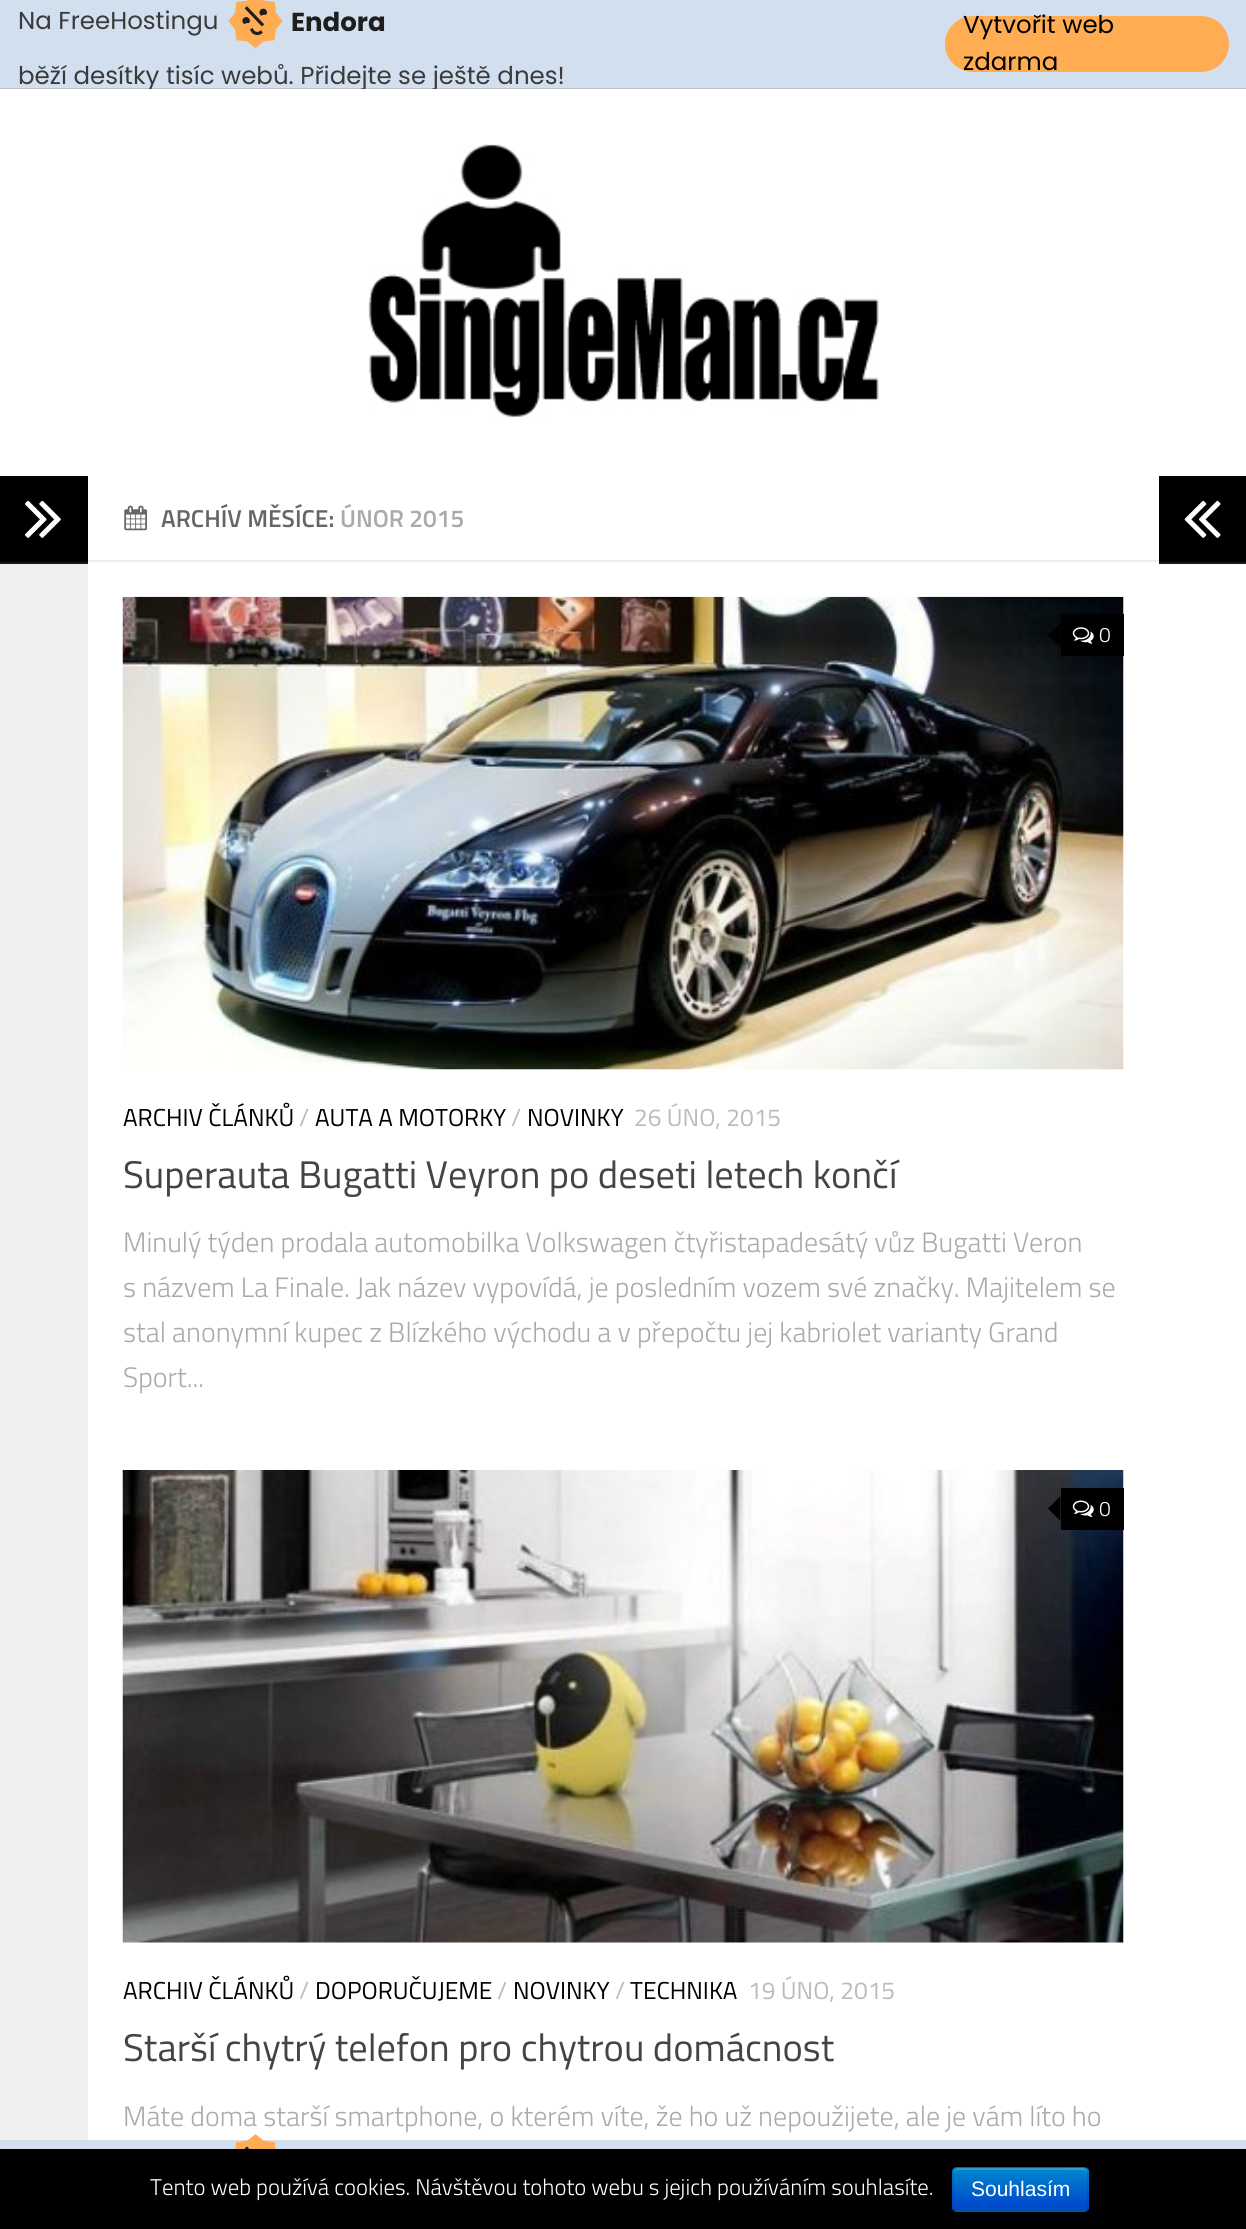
#include <cairo/cairo.h>
#include <math.h>
#include <stddef.h>

static cairo_t *cr;

static void use_color(int r, int g, int b) {
  cairo_set_source_rgb(cr, r / 255.0, g / 255.0, b / 255.0);
}

static void text(double x, double y, const char *s, const char *family, double size, int italic, int bold, int r, int g, int b) {
  cairo_select_font_face(cr, family, italic ? CAIRO_FONT_SLANT_ITALIC : CAIRO_FONT_SLANT_NORMAL,
    bold ? CAIRO_FONT_WEIGHT_BOLD : CAIRO_FONT_WEIGHT_NORMAL);
  cairo_set_font_size(cr, size);
  use_color(r, g, b);
  cairo_move_to(cr, x, y);
  cairo_show_text(cr, s);
}

static void box(double x, double y, double w, double h, int r, int g, int b) {
  use_color(r, g, b);
  cairo_rectangle(cr, x, y, w, h);
  cairo_fill(cr);
}

static void round_rect(double x, double y, double w, double h, double r) {
  cairo_new_sub_path(cr);
  cairo_arc(cr, x + w - r, y + h - r, r, 0, M_PI / 2);
  cairo_arc(cr, x + r, y + h - r, r, M_PI / 2, M_PI);
  cairo_arc(cr, x + r, y + r, r, M_PI, 1.5 * M_PI);
  cairo_arc(cr, x + w - r, y + r, r, 1.5 * M_PI, 2 * M_PI);
  cairo_close_path(cr);
}

static void picture(const char *path, double x, double y, double w, double h) {
  cairo_surface_t *image = cairo_image_surface_create_from_png(path);
  cairo_save(cr);
  cairo_set_source_surface(cr, image, x, y);
  cairo_rectangle(cr, x, y, w, h);
  cairo_fill(cr);
  cairo_restore(cr);
  cairo_surface_destroy(image);
}

static void draw(void) {
  cairo_pattern_t *gradient;
  use_color(210, 223, 239);
  cairo_paint(cr);
  box(0, 88, 1246, 1, 190, 191, 196);
  picture("img_01.png", 228, 0, 55, 49);
  use_color(255, 172, 82);
  round_rect(945, 16, 284, 56, 28);
  cairo_fill(cr);
  box(88, 476, 1158, 1664, 255, 255, 255);
  box(0, 564, 88, 1576, 240, 240, 240);
  box(0, 476, 88, 86, 0, 0, 0);
  box(0, 562, 88, 2, 26, 26, 26);
  picture("img_03.png", 25, 500, 36, 38);
  box(88, 560, 1071, 2, 238, 238, 238);
  picture("img_04.png", 124, 505, 23, 26);
  picture("img_05.png", 122, 596, 1002, 474);
  box(1061, 614, 63, 42, 0, 0, 0);
  cairo_new_path(cr);
  cairo_move_to(cr, 1060.5, 623);
  cairo_line_to(cr, 1060.5, 647.5);
  cairo_line_to(cr, 1048, 635);
  cairo_close_path(cr);
  cairo_fill(cr);
  picture("img_06.png", 1072, 627, 22, 17);
  picture("img_07.png", 122, 1470, 1002, 473);
  box(1061, 1488, 63, 42, 0, 0, 0);
  cairo_new_path(cr);
  cairo_move_to(cr, 1060.5, 1496);
  cairo_line_to(cr, 1060.5, 1521);
  cairo_line_to(cr, 1048, 1508.5);
  cairo_close_path(cr);
  cairo_fill(cr);
  picture("img_08.png", 1072, 1500, 22, 17);
  box(1159, 476, 87, 86, 0, 0, 0);
  box(1159, 562, 87, 2, 26, 26, 26);
  picture("img_09.png", 1184, 500, 37, 38);
  picture("img_10.png", 235, 2134, 41, 15);
  box(0, 2149, 1246, 80, 0, 0, 0);
  use_color(0, 109, 204);
  round_rect(952, 2167, 137, 45, 5);
  cairo_fill(cr);
  cairo_save(cr);
  round_rect(952, 2167, 137, 45, 5);
  cairo_clip(cr);
  gradient = cairo_pattern_create_linear(1020, 2168, 1020, 2210);
  cairo_pattern_add_color_stop_rgba(gradient, 0, 0, 0.533, 0.8, 1);
  cairo_pattern_add_color_stop_rgba(gradient, 1, 0, 0.267, 0.8, 1);
  cairo_set_source(cr, gradient);
  cairo_pattern_destroy(gradient);
  cairo_rectangle(cr, 952, 2168, 137, 42);
  cairo_fill(cr);
  cairo_restore(cr);
  cairo_set_source_rgba(cr, 1, 1, 1, 0.2);
  cairo_new_path(cr);
  cairo_move_to(cr, 957, 2170);
  cairo_line_to(cr, 1083, 2170);
  cairo_curve_to(cr, 1085, 2170, 1087, 2172, 1087, 2174);
  cairo_line_to(cr, 1087, 2172);
  cairo_curve_to(cr, 1087, 2170, 1085, 2168, 1083, 2168);
  cairo_line_to(cr, 958, 2168);
  cairo_curve_to(cr, 956, 2168, 954, 2170, 954, 2172);
  cairo_line_to(cr, 954, 2174);
  cairo_curve_to(cr, 954, 2172, 955, 2170, 957, 2170);
  cairo_close_path(cr);
  cairo_fill(cr);
  cairo_new_path(cr);
  cairo_move_to(cr, 1086.5, 2210);
  cairo_line_to(cr, 1083.5, 2211);
  cairo_line_to(cr, 978, 2211);
  cairo_line_to(cr, 957, 2211);
  cairo_line_to(cr, 954, 2210);
  cairo_set_source_rgba(cr, 0, 0, 0, 0.25);
  cairo_set_line_width(cr, 1.8);
  cairo_stroke(cr);
  cairo_new_path(cr);
  cairo_move_to(cr, 954, 2210);
  cairo_curve_to(cr, 951.5, 2207, 953, 2198, 953, 2195);
  cairo_line_to(cr, 953, 2177.5);
  cairo_curve_to(cr, 953, 2174, 952, 2167.5, 957, 2167.5);
  cairo_line_to(cr, 1062, 2167.5);
  cairo_curve_to(cr, 1091.5, 2167.5, 1087.5, 2162.5, 1087.5, 2189);
  cairo_line_to(cr, 1087.5, 2201);
  cairo_curve_to(cr, 1087.5, 2203.5, 1088.5, 2207.5, 1086.5, 2210);
  cairo_set_source_rgba(cr, 0, 0, 0, 0.1);
  cairo_stroke(cr);
  text(18, 29, "Na FreeHostingu", "Poppins", 24.5, 0, 0, 58, 58, 58);
  text(291, 31, "Endora", "Poppins", 26, 0, 1, 30, 30, 30);
  text(18, 84, "běží desítky tisíc webů. Přidejte se ještě dnes!", "Poppins", 24.5, 0, 0, 58, 58, 58);
  text(963, 33, "Vytvořit web", "Poppins", 24.5, 0, 0, 0, 0, 0);
  text(963, 70, "zdarma", "Poppins", 24.5, 0, 0, 0, 0, 0);
  box(0, 89, 1246, 387, 255, 255, 255);
  picture("img_02.png", 368, 144, 511, 273);
  text(161, 527, "ARCHÍV MĚSÍCE:", "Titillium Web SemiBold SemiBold", 24.5, 0, 0, 102, 102, 102);
  text(340, 527, "ÚNOR 2015", "Titillium Web SemiBold SemiBold", 24.5, 0, 0, 170, 170, 170);
  text(1099, 642, "0", "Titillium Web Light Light", 21, 0, 0, 255, 255, 255);
  text(123, 1126, "ARCHIV ČLÁNKŮ", "Titillium Web", 24.5, 0, 0, 0, 0, 0);
  text(299, 1126, "/", "Titillium Web", 24.5, 0, 0, 187, 187, 187);
  text(315, 1126, "AUTA A MOTORKY", "Titillium Web", 24.5, 0, 0, 0, 0, 0);
  text(511, 1126, "/", "Titillium Web", 24.5, 0, 0, 187, 187, 187);
  text(527, 1126, "NOVINKY", "Titillium Web", 24.5, 0, 0, 0, 0, 0);
  text(634, 1126, "26 ÚNO, 2015", "Titillium Web", 24.5, 0, 0, 187, 187, 187);
  text(123, 1188, "Superauta Bugatti Veyron po deseti letech končí", "Titillium Web", 38.5, 0, 0, 68, 68, 68);
  text(123, 1252, "Minulý týden prodala automobilka Volkswagen čtyřistapadesátý vůz Bugatti Veron", "Titillium Web Light Light", 28, 0, 0, 170, 170, 170);
  text(123, 1297, "s názvem La Finale. Jak název vypovídá, je posledním vozem své značky. Majitelem se", "Titillium Web Light Light", 28, 0, 0, 170, 170, 170);
  text(123, 1342, "stal anonymní kupec z Blízkého východu a v přepočtu jej kabriolet varianty Grand", "Titillium Web Light Light", 28, 0, 0, 170, 170, 170);
  text(123, 1387, "Sport...", "Titillium Web Light Light", 28, 0, 0, 170, 170, 170);
  text(1099, 1516, "0", "Titillium Web Light Light", 21, 0, 0, 255, 255, 255);
  text(123, 1999, "ARCHIV ČLÁNKŮ", "Titillium Web", 24.5, 0, 0, 0, 0, 0);
  text(299, 1999, "/", "Titillium Web", 24.5, 0, 0, 187, 187, 187);
  text(315, 1999, "DOPORUČUJEME", "Titillium Web", 24.5, 0, 0, 0, 0, 0);
  text(497, 1999, "/", "Titillium Web", 24.5, 0, 0, 187, 187, 187);
  text(513, 1999, "NOVINKY", "Titillium Web", 24.5, 0, 0, 0, 0, 0);
  text(615, 1999, "/", "Titillium Web", 24.5, 0, 0, 187, 187, 187);
  text(630, 1999, "TECHNIKA", "Titillium Web", 24.5, 0, 0, 0, 0, 0);
  text(748, 1999, "19 ÚNO, 2015", "Titillium Web", 24.5, 0, 0, 187, 187, 187);
  text(123, 2061, "Starší chytrý telefon pro chytrou domácnost", "Titillium Web", 38.5, 0, 0, 68, 68, 68);
  text(123, 2126, "Máte doma starší smartphone, o kterém víte, že ho už nepoužijete, ale je vám líto ho", "Titillium Web Light Light", 28, 0, 0, 170, 170, 170);
  text(150, 2195, "Tento web používá cookies. Návštěvou tohoto webu s jejich používáním souhlasíte.", "Titillium Web Light Light", 22.75, 0, 0, 255, 255, 255);
  text(971, 2196, "Souhlasím", "Liberation Sans", 21, 0, 0, 255, 255, 255);
}

int main(void) {
  cairo_surface_t *surface = cairo_image_surface_create(CAIRO_FORMAT_RGB24, 1246, 2229);
  cr = cairo_create(surface);
  cairo_font_options_t *options = cairo_font_options_create();
  cairo_font_options_set_hint_metrics(options, CAIRO_HINT_METRICS_OFF);
  cairo_font_options_set_hint_style(options, CAIRO_HINT_STYLE_NONE);
  cairo_set_font_options(cr, options);
  cairo_set_miter_limit(cr, 4);
  draw();
  cairo_surface_write_to_png(surface, "out.png");
  cairo_font_options_destroy(options);
  cairo_destroy(cr);
  cairo_surface_destroy(surface);
  return 0;
}
